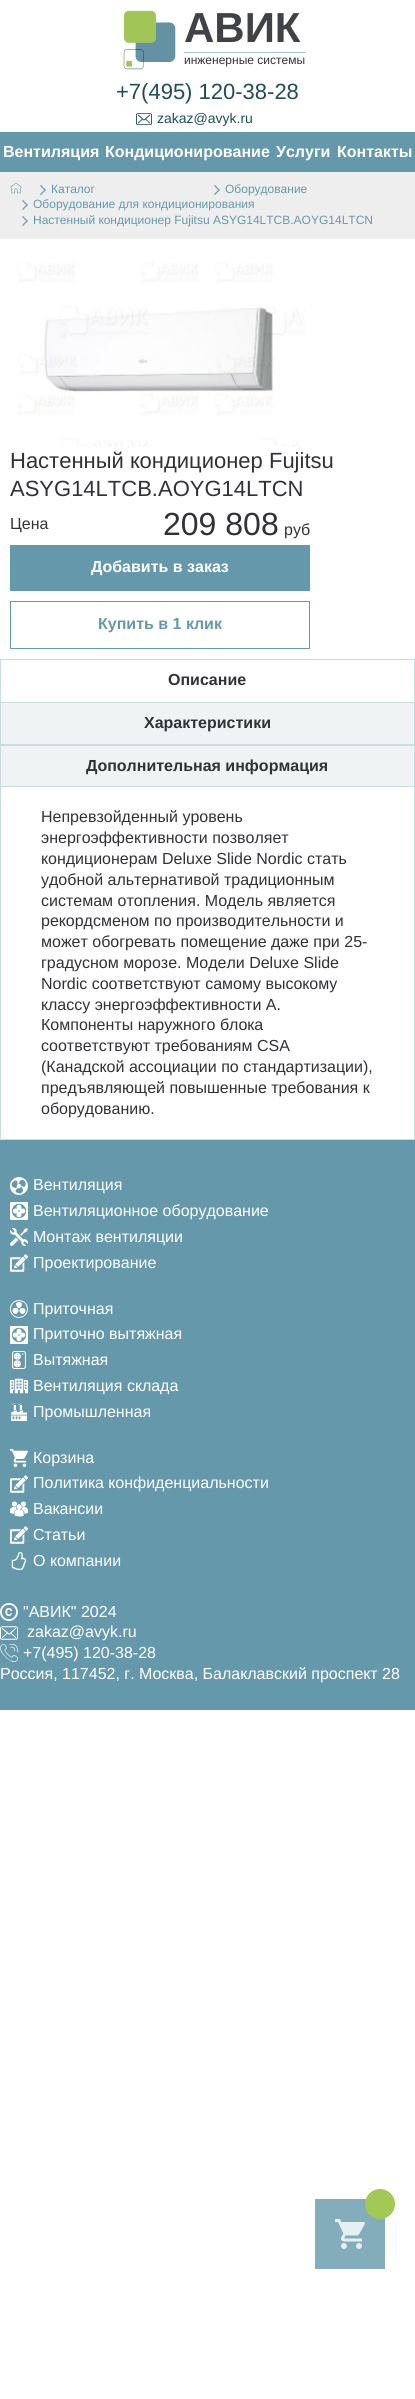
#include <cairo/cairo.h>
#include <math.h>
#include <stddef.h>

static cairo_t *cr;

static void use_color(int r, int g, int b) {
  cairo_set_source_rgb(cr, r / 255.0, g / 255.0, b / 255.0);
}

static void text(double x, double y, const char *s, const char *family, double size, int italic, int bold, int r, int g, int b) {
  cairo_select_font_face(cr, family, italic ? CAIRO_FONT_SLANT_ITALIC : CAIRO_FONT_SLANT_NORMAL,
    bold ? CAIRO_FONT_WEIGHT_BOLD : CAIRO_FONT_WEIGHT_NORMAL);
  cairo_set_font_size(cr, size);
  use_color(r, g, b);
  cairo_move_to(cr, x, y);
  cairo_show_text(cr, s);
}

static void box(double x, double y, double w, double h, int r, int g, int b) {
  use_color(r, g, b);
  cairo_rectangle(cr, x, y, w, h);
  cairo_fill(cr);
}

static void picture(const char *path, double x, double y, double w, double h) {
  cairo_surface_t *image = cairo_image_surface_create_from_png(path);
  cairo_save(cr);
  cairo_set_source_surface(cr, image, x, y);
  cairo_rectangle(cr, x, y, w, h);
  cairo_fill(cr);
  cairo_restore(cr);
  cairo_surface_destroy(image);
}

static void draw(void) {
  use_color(255, 255, 255);
  cairo_paint(cr);
  picture("img_01.png", 123, 10, 53, 60);
  box(184, 52, 122, 1, 163, 193, 205);
  picture("img_02.png", 136, 113, 16, 12);
  box(0, 132, 415, 40, 101, 152, 171);
  box(0, 172, 415, 67, 238, 238, 238);
  picture("img_03.png", 10, 182, 12, 12);
  picture("img_04.png", 40, 185, 6, 10);
  picture("img_04.png", 214, 185, 6, 10);
  picture("img_04.png", 22, 200, 6, 10);
  picture("img_04.png", 22, 216, 6, 10);
  picture("img_05.png", 17, 262, 289, 185);
  box(10, 545, 300, 46, 101, 152, 171);
  cairo_rectangle(cr, 10.5, 601.5, 299, 47);
  cairo_set_line_width(cr, 1);
  cairo_stroke(cr);
  box(0, 659, 415, 1, 201, 221, 222);
  box(414, 659, 1, 43, 201, 221, 222);
  box(414, 701, 1, 1, 255, 255, 255);
  box(0, 659, 1, 43, 201, 221, 222);
  use_color(239, 243, 244);
  cairo_rectangle(cr, 0.5, 702.5, 414, 42);
  cairo_fill_preserve(cr);
  use_color(201, 221, 222);
  cairo_stroke(cr);
  use_color(239, 243, 244);
  cairo_rectangle(cr, 0.5, 745.5, 414, 41);
  cairo_fill_preserve(cr);
  use_color(201, 221, 222);
  cairo_stroke(cr);
  box(414, 787, 1, 353, 201, 221, 222);
  box(0, 1139, 415, 1, 201, 221, 222);
  box(0, 787, 1, 353, 201, 221, 222);
  box(0, 1140, 415, 570, 101, 152, 171);
  picture("img_06.png", 10, 1177, 18, 18);
  picture("img_07.png", 10, 1202, 18, 18);
  picture("img_08.png", 10, 1228, 18, 18);
  picture("img_09.png", 10, 1254, 18, 18);
  picture("img_10.png", 10, 1300, 18, 18);
  picture("img_07.png", 10, 1326, 18, 18);
  picture("img_11.png", 12, 1351, 14, 18);
  picture("img_12.png", 10, 1378, 18, 16);
  picture("img_13.png", 11, 1403, 16, 18);
  picture("img_14.png", 10, 1449, 18, 18);
  picture("img_09.png", 10, 1475, 18, 18);
  picture("img_15.png", 10, 1501, 18, 16);
  picture("img_09.png", 10, 1526, 18, 18);
  picture("img_16.png", 11, 1552, 16, 18);
  picture("img_17.png", 0, 1603, 18, 18);
  picture("img_18.png", 0, 1626, 18, 14);
  picture("img_19.png", 0, 1644, 18, 18);
  box(315, 2199, 70, 70, 132, 173, 188);
  use_color(162, 201, 85);
  cairo_arc(cr, 380, 2204, 15, 0, 2 * M_PI);
  cairo_fill(cr);
  picture("img_20.png", 335, 2219, 30, 30);
  text(184, 42, "АВИК", "Liberation Sans", 42, 0, 1, 64, 66, 71);
  text(184, 64, "инженерные системы", "Liberation Sans", 12, 0, 0, 49, 50, 54);
  text(116, 99, "+7(495) 120-38-28", "Liberation Sans", 22, 0, 0, 29, 79, 90);
  text(157, 123, "zakaz@avyk.ru", "Liberation Sans", 14, 0, 0, 29, 79, 90);
  text(3, 157, "Вентиляция", "Liberation Sans", 16, 0, 1, 255, 255, 255);
  text(105, 157, "Кондиционирование", "Liberation Sans", 16, 0, 1, 255, 255, 255);
  text(276, 157, "Услуги", "Liberation Sans", 16, 0, 1, 255, 255, 255);
  text(337, 157, "Контакты", "Liberation Sans", 16, 0, 1, 255, 255, 255);
  text(51, 193, "Каталог", "Liberation Sans", 12, 0, 0, 101, 152, 171);
  text(225, 193, "Оборудование", "Liberation Sans", 12, 0, 0, 101, 152, 171);
  text(33, 208, "Оборудование для кондиционирования", "Liberation Sans", 12, 0, 0, 101, 152, 171);
  text(33, 224, "Настенный кондиционер Fujitsu ASYG14LTCB.AOYG14LTCN", "Liberation Sans", 12, 0, 0, 101, 152, 171);
  text(10, 468, "Настенный кондиционер Fujitsu", "Liberation Sans", 22, 0, 0, 49, 50, 54);
  text(10, 496, "ASYG14LTCB.AOYG14LTCN", "Liberation Sans", 22, 0, 0, 49, 50, 54);
  text(10, 529, "Цена", "Liberation Sans", 16, 0, 0, 49, 50, 54);
  text(163, 535, "209 808", "Liberation Sans", 32, 0, 0, 49, 50, 54);
  text(284, 535, "руб", "Liberation Sans", 16, 0, 0, 49, 50, 54);
  text(91, 572, "Добавить в заказ", "Liberation Sans", 16, 0, 1, 255, 255, 255);
  text(98, 629, "Купить в 1 клик", "Liberation Sans", 16, 0, 1, 101, 152, 171);
  text(168, 685, "Описание", "Liberation Sans", 16, 0, 1, 49, 50, 54);
  text(144, 728, "Характеристики", "Liberation Sans", 16, 0, 1, 49, 50, 54);
  text(86, 771, "Дополнительная информация", "Liberation Sans", 16, 0, 1, 49, 50, 54);
  text(41, 822, "Непревзойденный уровень", "Liberation Sans", 16, 0, 0, 49, 50, 54);
  text(41, 843, "энергоэффективности позволяет", "Liberation Sans", 16, 0, 0, 49, 50, 54);
  text(41, 864, "кондиционерам Deluxe Slide Nordic стать", "Liberation Sans", 16, 0, 0, 49, 50, 54);
  text(41, 885, "удобной альтернативой традиционным", "Liberation Sans", 16, 0, 0, 49, 50, 54);
  text(41, 906, "системам отопления. Модель является", "Liberation Sans", 16, 0, 0, 49, 50, 54);
  text(41, 926, "рекордсменом по производительности и", "Liberation Sans", 16, 0, 0, 49, 50, 54);
  text(41, 947, "может обогревать помещение даже при 25-", "Liberation Sans", 16, 0, 0, 49, 50, 54);
  text(41, 968, "градусном морозе. Модели Deluxe Slide", "Liberation Sans", 16, 0, 0, 49, 50, 54);
  text(41, 989, "Nordic соответствуют самому высокому", "Liberation Sans", 16, 0, 0, 49, 50, 54);
  text(41, 1010, "классу энергоэффективности А.", "Liberation Sans", 16, 0, 0, 49, 50, 54);
  text(41, 1030, "Компоненты наружного блока", "Liberation Sans", 16, 0, 0, 49, 50, 54);
  text(41, 1051, "соответствуют требованиям CSA", "Liberation Sans", 16, 0, 0, 49, 50, 54);
  text(41, 1072, "(Канадской ассоциации по стандартизации),", "Liberation Sans", 16, 0, 0, 49, 50, 54);
  text(41, 1093, "предъявляющей повышенные требования к", "Liberation Sans", 16, 0, 0, 49, 50, 54);
  text(41, 1114, "оборудованию.", "Liberation Sans", 16, 0, 0, 49, 50, 54);
  text(33, 1190, "Вентиляция", "Liberation Sans", 16, 0, 0, 255, 255, 255);
  text(33, 1216, "Вентиляционное оборудование", "Liberation Sans", 16, 0, 0, 255, 255, 255);
  text(33, 1242, "Монтаж вентиляции", "Liberation Sans", 16, 0, 0, 255, 255, 255);
  text(33, 1268, "Проектирование", "Liberation Sans", 16, 0, 0, 255, 255, 255);
  text(33, 1314, "Приточная", "Liberation Sans", 16, 0, 0, 255, 255, 255);
  text(33, 1339, "Приточно вытяжная", "Liberation Sans", 16, 0, 0, 255, 255, 255);
  text(33, 1365, "Вытяжная", "Liberation Sans", 16, 0, 0, 255, 255, 255);
  text(33, 1391, "Вентиляция склада", "Liberation Sans", 16, 0, 0, 255, 255, 255);
  text(33, 1417, "Промышленная", "Liberation Sans", 16, 0, 0, 255, 255, 255);
  text(33, 1463, "Корзина", "Liberation Sans", 16, 0, 0, 255, 255, 255);
  text(33, 1488, "Политика конфиденциальности", "Liberation Sans", 16, 0, 0, 255, 255, 255);
  text(33, 1514, "Вакансии", "Liberation Sans", 16, 0, 0, 255, 255, 255);
  text(33, 1540, "Статьи", "Liberation Sans", 16, 0, 0, 255, 255, 255);
  text(33, 1566, "О компании", "Liberation Sans", 16, 0, 0, 255, 255, 255);
  text(23, 1617, "\"АВИК\" 2024", "Liberation Sans", 16, 0, 0, 255, 255, 255);
  text(27, 1637, "zakaz@avyk.ru", "Liberation Sans", 16, 0, 0, 255, 255, 255);
  text(23, 1658, "+7(495) 120-38-28", "Liberation Sans", 16, 0, 0, 255, 255, 255);
  text(0, 1679, "Россия, 117452, г. Москва, Балаклавский проспект 28", "Liberation Sans", 16, 0, 0, 255, 255, 255);
}

int main(void) {
  cairo_surface_t *surface = cairo_image_surface_create(CAIRO_FORMAT_RGB24, 415, 2399);
  cr = cairo_create(surface);
  cairo_font_options_t *options = cairo_font_options_create();
  cairo_font_options_set_hint_metrics(options, CAIRO_HINT_METRICS_OFF);
  cairo_font_options_set_hint_style(options, CAIRO_HINT_STYLE_NONE);
  cairo_set_font_options(cr, options);
  cairo_set_miter_limit(cr, 4);
  draw();
  cairo_surface_write_to_png(surface, "out.png");
  cairo_font_options_destroy(options);
  cairo_destroy(cr);
  cairo_surface_destroy(surface);
  return 0;
}
